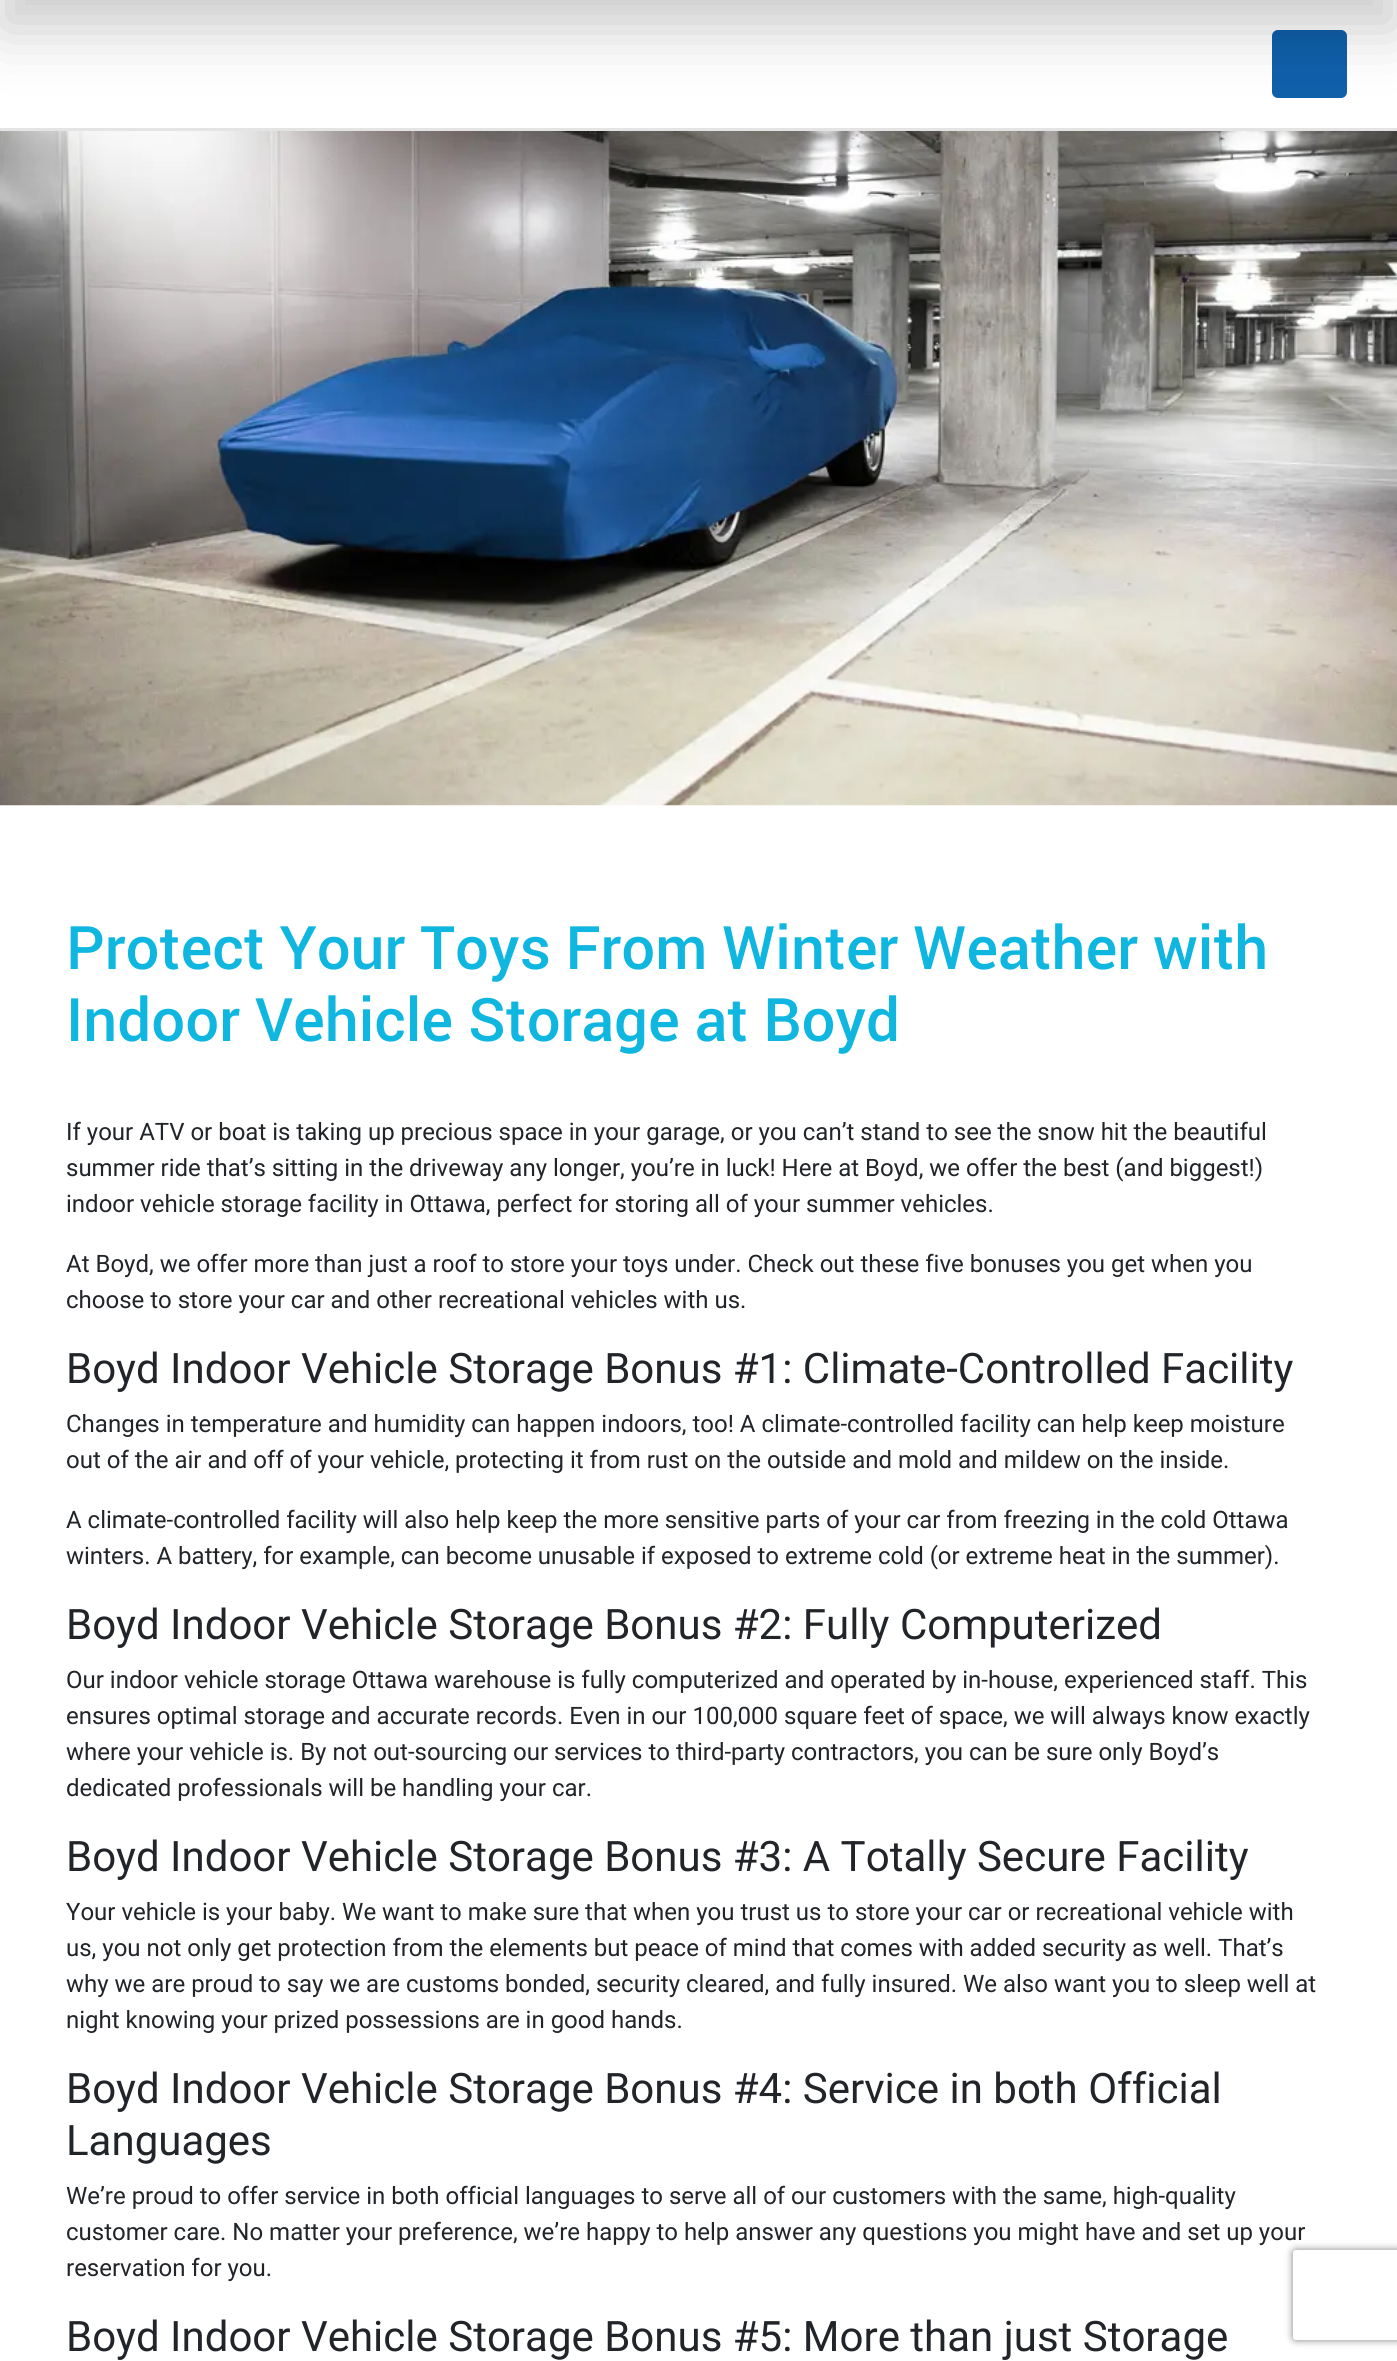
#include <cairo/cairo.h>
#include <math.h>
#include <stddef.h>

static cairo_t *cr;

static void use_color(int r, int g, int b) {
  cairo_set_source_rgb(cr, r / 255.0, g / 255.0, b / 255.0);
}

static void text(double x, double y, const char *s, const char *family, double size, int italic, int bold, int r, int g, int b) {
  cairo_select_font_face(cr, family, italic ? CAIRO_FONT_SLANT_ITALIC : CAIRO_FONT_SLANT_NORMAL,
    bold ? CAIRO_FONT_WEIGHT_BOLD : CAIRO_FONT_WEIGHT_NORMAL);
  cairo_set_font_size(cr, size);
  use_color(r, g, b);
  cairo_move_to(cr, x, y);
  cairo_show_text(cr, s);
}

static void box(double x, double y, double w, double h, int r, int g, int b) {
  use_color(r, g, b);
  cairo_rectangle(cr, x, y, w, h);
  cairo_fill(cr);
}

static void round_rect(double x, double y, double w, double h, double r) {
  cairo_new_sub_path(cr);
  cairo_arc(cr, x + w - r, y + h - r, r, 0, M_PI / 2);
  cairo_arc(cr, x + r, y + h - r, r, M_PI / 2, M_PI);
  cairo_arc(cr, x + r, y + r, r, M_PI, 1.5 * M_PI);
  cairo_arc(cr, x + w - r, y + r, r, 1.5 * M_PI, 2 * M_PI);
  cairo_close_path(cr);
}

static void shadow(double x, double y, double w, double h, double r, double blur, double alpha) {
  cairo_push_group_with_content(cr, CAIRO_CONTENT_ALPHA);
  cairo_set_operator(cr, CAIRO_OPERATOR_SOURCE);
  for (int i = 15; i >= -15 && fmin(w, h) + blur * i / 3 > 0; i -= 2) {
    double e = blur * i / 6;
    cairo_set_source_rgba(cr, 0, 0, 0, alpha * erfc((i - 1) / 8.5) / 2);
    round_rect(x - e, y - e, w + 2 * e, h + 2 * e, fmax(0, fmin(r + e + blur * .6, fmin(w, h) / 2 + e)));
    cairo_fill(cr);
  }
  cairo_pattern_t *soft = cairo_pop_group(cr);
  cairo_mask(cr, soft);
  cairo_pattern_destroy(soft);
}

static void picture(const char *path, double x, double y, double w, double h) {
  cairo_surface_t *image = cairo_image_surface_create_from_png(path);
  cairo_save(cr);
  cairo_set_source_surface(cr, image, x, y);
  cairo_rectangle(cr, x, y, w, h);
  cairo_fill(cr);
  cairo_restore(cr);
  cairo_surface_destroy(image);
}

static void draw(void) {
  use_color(255, 255, 255);
  cairo_paint(cr);
  use_color(15, 95, 170);
  round_rect(1272, 30, 75, 68, 6);
  cairo_fill(cr);
  use_color(0, 0, 0);
  shadow(0, -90, 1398, 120, 0, 30, 0.2);
  box(0, 128, 1397, 3, 228, 228, 228);
  picture("img_01.png", 0, 131, 1397, 675);
  cairo_save(cr);
  cairo_set_fill_rule(cr, CAIRO_FILL_RULE_EVEN_ODD);
  cairo_new_path(cr);
  cairo_move_to(cr, 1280, 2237);
  cairo_line_to(cr, 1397, 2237);
  cairo_line_to(cr, 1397, 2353);
  cairo_line_to(cr, 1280, 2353);
  cairo_close_path(cr);
  cairo_move_to(cr, 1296, 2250);
  cairo_line_to(cr, 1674, 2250);
  cairo_curve_to(cr, 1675.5, 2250, 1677, 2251.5, 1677, 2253);
  cairo_line_to(cr, 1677, 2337);
  cairo_curve_to(cr, 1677, 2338.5, 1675.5, 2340, 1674, 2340);
  cairo_line_to(cr, 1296, 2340);
  cairo_curve_to(cr, 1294.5, 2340, 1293, 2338.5, 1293, 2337);
  cairo_line_to(cr, 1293, 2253);
  cairo_curve_to(cr, 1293, 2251.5, 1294.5, 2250, 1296, 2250);
  cairo_close_path(cr);
  cairo_clip(cr);
  use_color(128, 128, 128);
  shadow(1293, 2250, 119, 90, 3, 4, 1);
  cairo_restore(cr);
  text(66, 969, "Protect Your Toys From Winter Weather with", "Roboto Medium", 60, 0, 0, 15, 182, 223);
  text(66, 1041, "Indoor Vehicle Storage at Boyd", "Roboto Medium", 60, 0, 0, 15, 182, 223);
  text(66, 1140, "If your ATV or boat is taking up precious space in your garage, or you can’t stand to see the snow hit the beautiful", "Roboto", 24, 0, 0, 33, 37, 41);
  text(66, 1176, "summer ride that’s sitting in the driveway any longer, you’re in luck! Here at Boyd, we offer the best (and biggest!)", "Roboto", 24, 0, 0, 33, 37, 41);
  text(66, 1212, "indoor vehicle storage facility in Ottawa, perfect for storing all of your summer vehicles.", "Roboto", 24, 0, 0, 33, 37, 41);
  text(66, 1272, "At Boyd, we offer more than just a roof to store your toys under. Check out these five bonuses you get when you", "Roboto", 24, 0, 0, 33, 37, 41);
  text(66, 1308, "choose to store your car and other recreational vehicles with us.", "Roboto", 24, 0, 0, 33, 37, 41);
  text(66, 1383, "Boyd Indoor Vehicle Storage Bonus #1: Climate-Controlled Facility", "Roboto", 42, 0, 0, 33, 37, 41);
  text(66, 1432, "Changes in temperature and humidity can happen indoors, too! A climate-controlled facility can help keep moisture", "Roboto", 24, 0, 0, 33, 37, 41);
  text(66, 1468, "out of the air and off of your vehicle, protecting it from rust on the outside and mold and mildew on the inside.", "Roboto", 24, 0, 0, 33, 37, 41);
  text(66, 1528, "A climate-controlled facility will also help keep the more sensitive parts of your car from freezing in the cold Ottawa", "Roboto", 24, 0, 0, 33, 37, 41);
  text(66, 1564, "winters. A battery, for example, can become unusable if exposed to extreme cold (or extreme heat in the summer).", "Roboto", 24, 0, 0, 33, 37, 41);
  text(66, 1639, "Boyd Indoor Vehicle Storage Bonus #2: Fully Computerized", "Roboto", 42, 0, 0, 33, 37, 41);
  text(66, 1688, "Our indoor vehicle storage Ottawa warehouse is fully computerized and operated by in-house, experienced staff. This", "Roboto", 24, 0, 0, 33, 37, 41);
  text(66, 1724, "ensures optimal storage and accurate records. Even in our 100,000 square feet of space, we will always know exactly", "Roboto", 24, 0, 0, 33, 37, 41);
  text(66, 1760, "where your vehicle is. By not out-sourcing our services to third-party contractors, you can be sure only Boyd’s", "Roboto", 24, 0, 0, 33, 37, 41);
  text(66, 1796, "dedicated professionals will be handling your car.", "Roboto", 24, 0, 0, 33, 37, 41);
  text(66, 1871, "Boyd Indoor Vehicle Storage Bonus #3: A Totally Secure Facility", "Roboto", 42, 0, 0, 33, 37, 41);
  text(66, 1920, "Your vehicle is your baby. We want to make sure that when you trust us to store your car or recreational vehicle with", "Roboto", 24, 0, 0, 33, 37, 41);
  text(66, 1956, "us, you not only get protection from the elements but peace of mind that comes with added security as well. That’s", "Roboto", 24, 0, 0, 33, 37, 41);
  text(66, 1992, "why we are proud to say we are customs bonded, security cleared, and fully insured. We also want you to sleep well at", "Roboto", 24, 0, 0, 33, 37, 41);
  text(66, 2028, "night knowing your prized possessions are in good hands.", "Roboto", 24, 0, 0, 33, 37, 41);
  text(66, 2103, "Boyd Indoor Vehicle Storage Bonus #4: Service in both Official", "Roboto", 42, 0, 0, 33, 37, 41);
  text(66, 2155, "Languages", "Roboto", 42, 0, 0, 33, 37, 41);
  text(66, 2204, "We’re proud to offer service in both official languages to serve all of our customers with the same, high-quality", "Roboto", 24, 0, 0, 33, 37, 41);
  text(66, 2240, "customer care. No matter your preference, we’re happy to help answer any questions you might have and set up your", "Roboto", 24, 0, 0, 33, 37, 41);
  text(66, 2276, "reservation for you.", "Roboto", 24, 0, 0, 33, 37, 41);
  text(66, 2351, "Boyd Indoor Vehicle Storage Bonus #5: More than just Storage", "Roboto", 42, 0, 0, 33, 37, 41);
}

int main(void) {
  cairo_surface_t *surface = cairo_image_surface_create(CAIRO_FORMAT_RGB24, 1397, 2361);
  cr = cairo_create(surface);
  cairo_font_options_t *options = cairo_font_options_create();
  cairo_font_options_set_hint_metrics(options, CAIRO_HINT_METRICS_OFF);
  cairo_font_options_set_hint_style(options, CAIRO_HINT_STYLE_NONE);
  cairo_set_font_options(cr, options);
  cairo_set_miter_limit(cr, 4);
  draw();
  cairo_surface_write_to_png(surface, "out.png");
  cairo_font_options_destroy(options);
  cairo_destroy(cr);
  cairo_surface_destroy(surface);
  return 0;
}
